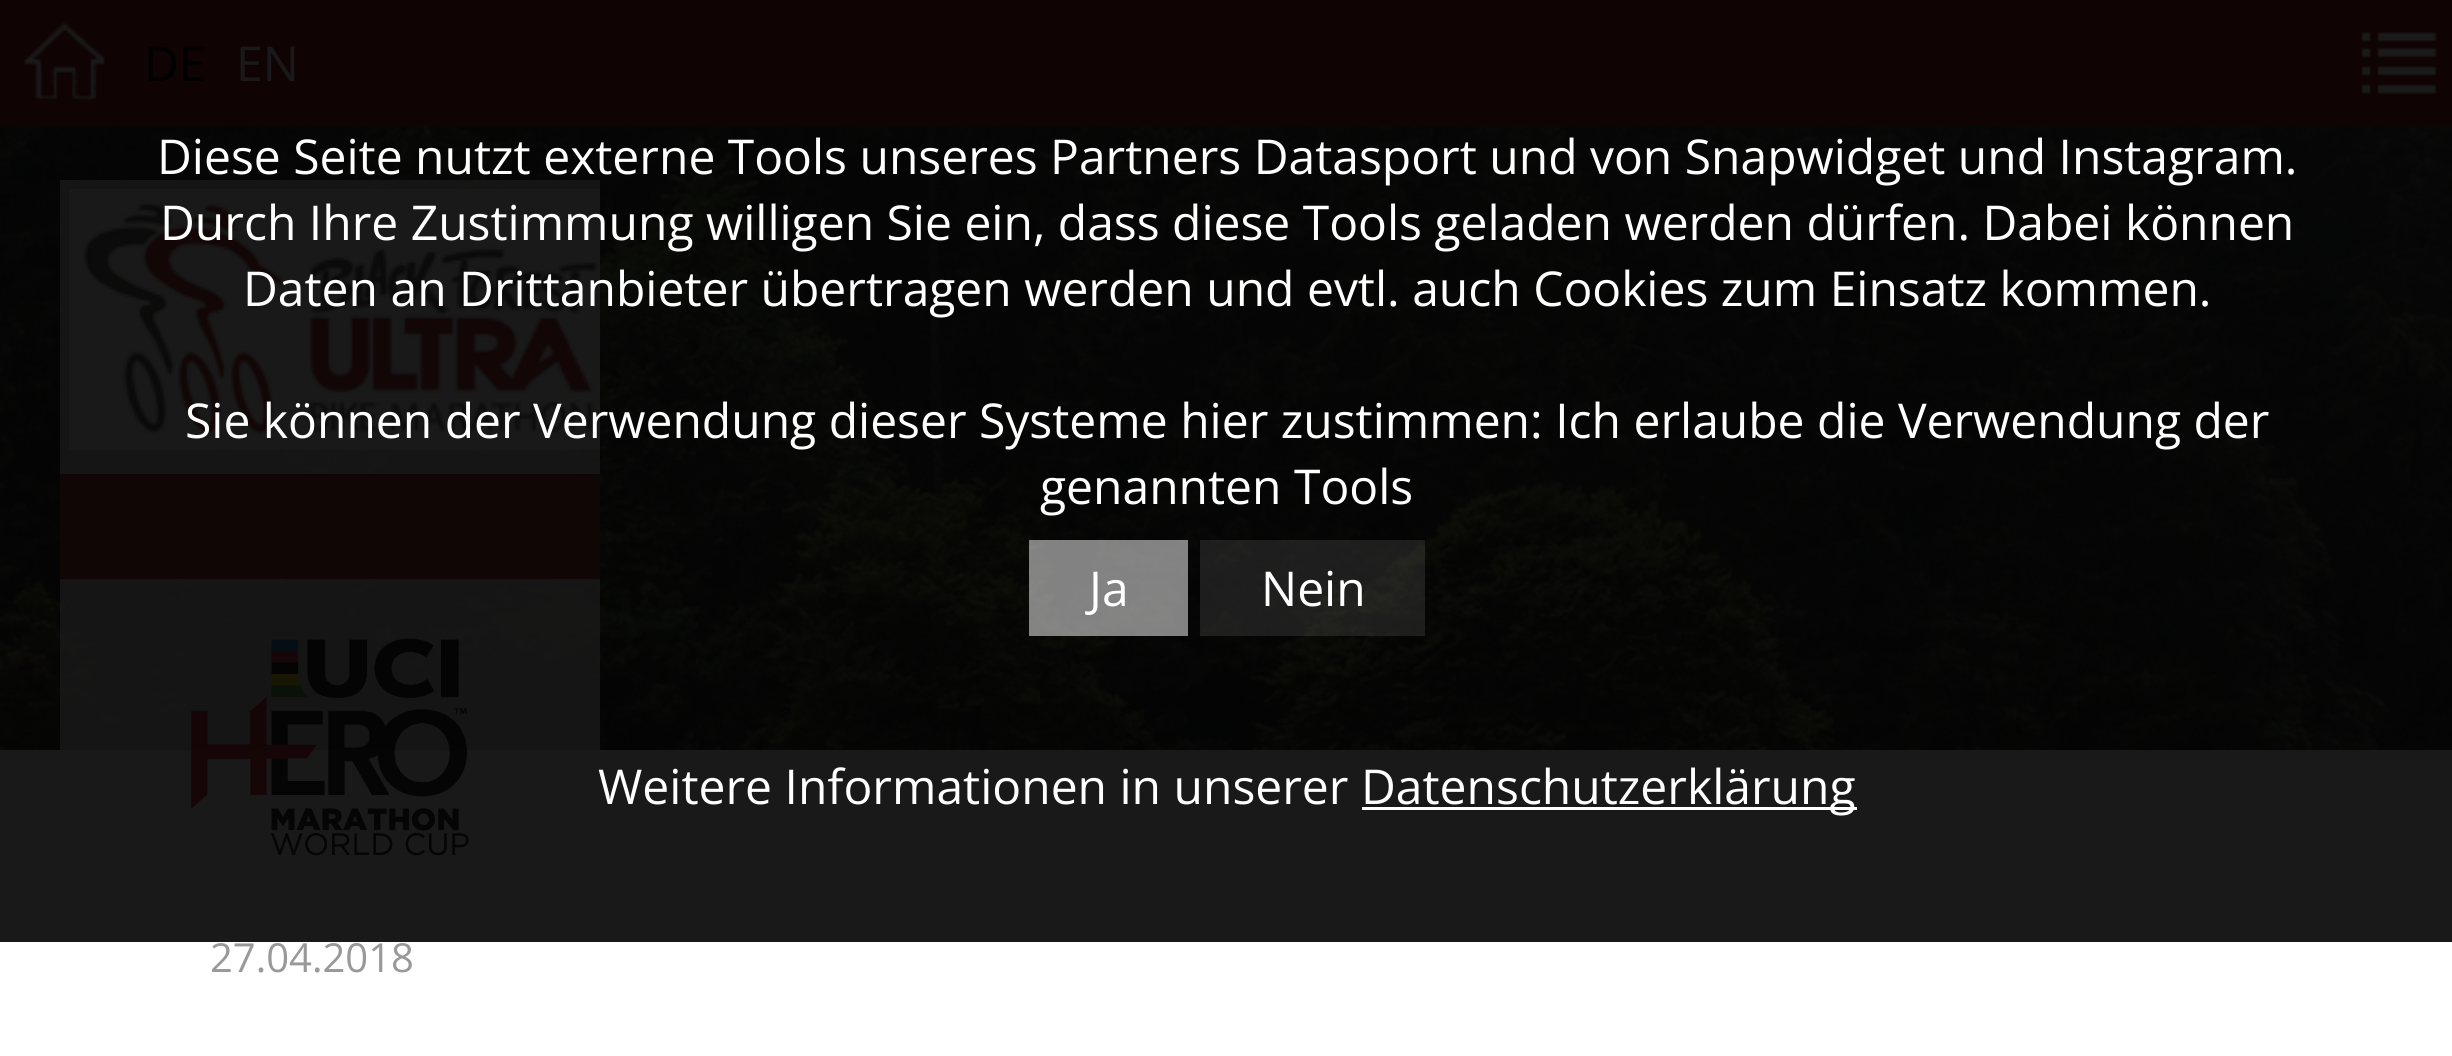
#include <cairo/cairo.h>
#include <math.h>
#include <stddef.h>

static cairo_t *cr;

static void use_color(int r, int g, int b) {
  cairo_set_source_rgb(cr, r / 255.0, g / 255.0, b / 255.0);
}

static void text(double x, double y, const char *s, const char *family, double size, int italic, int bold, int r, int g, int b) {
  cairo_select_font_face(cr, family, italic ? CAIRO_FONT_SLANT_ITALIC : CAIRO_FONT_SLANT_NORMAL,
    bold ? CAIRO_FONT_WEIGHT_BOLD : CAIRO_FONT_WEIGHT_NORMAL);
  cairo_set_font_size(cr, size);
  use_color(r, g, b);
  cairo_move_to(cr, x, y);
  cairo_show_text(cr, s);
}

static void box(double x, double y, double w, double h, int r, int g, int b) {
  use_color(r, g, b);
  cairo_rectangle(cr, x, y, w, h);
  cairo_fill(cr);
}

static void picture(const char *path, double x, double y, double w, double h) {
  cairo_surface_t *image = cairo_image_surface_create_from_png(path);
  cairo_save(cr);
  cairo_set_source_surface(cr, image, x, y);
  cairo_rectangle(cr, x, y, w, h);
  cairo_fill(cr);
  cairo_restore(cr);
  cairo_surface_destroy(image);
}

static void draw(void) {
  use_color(25, 25, 25);
  cairo_paint(cr);
  picture("img_03.png", 0, 120, 2452, 630);
  cairo_set_source_rgba(cr, 0.067, 0.012, 0.012, 0.99);
  cairo_rectangle(cr, 0, 0, 2452, 126);
  cairo_fill(cr);
  picture("img_01.png", 24, 21, 81, 81);
  picture("img_02.png", 2361, 32, 76, 62);
  cairo_set_source_rgba(cr, 1, 1, 1, 0.5);
  cairo_rectangle(cr, 1029, 540, 159, 96);
  cairo_fill(cr);
  cairo_set_source_rgba(cr, 1, 1, 1, 0.1);
  cairo_rectangle(cr, 1200, 540, 225, 96);
  cairo_fill(cr);
  box(1362, 807, 495, 3, 255, 255, 255);
  cairo_set_source_rgba(cr, 0.098, 0.098, 0.098, 0.8);
  cairo_rectangle(cr, 60, 180, 540, 570);
  cairo_fill(cr);
  picture("img_04.png", 69, 189, 531, 261);
  cairo_set_source_rgba(cr, 0.067, 0.012, 0.012, 0.8);
  cairo_rectangle(cr, 60, 474, 540, 105);
  cairo_fill(cr);
  picture("img_05.png", 191, 638, 278, 218);
  box(0, 942, 2452, 114, 255, 255, 255);
  text(144, 81, "DE", "Open Sans", 48, 0, 0, 0, 0, 0);
  text(236, 81, "EN", "Open Sans", 48, 0, 0, 25, 25, 25);
  text(157, 174, "Diese Seite nutzt externe Tools unseres Partners Datasport und von Snapwidget und Instagram.", "Open Sans", 48, 0, 0, 255, 255, 255);
  text(160, 240, "Durch Ihre Zustimmung willigen Sie ein, dass diese Tools geladen werden dürfen. Dabei können", "Open Sans", 48, 0, 0, 255, 255, 255);
  text(243, 306, "Daten an Drittanbieter übertragen werden und evtl. auch Cookies zum Einsatz kommen.", "Open Sans", 48, 0, 0, 255, 255, 255);
  text(185, 438, "Sie können der Verwendung dieser Systeme hier zustimmen: Ich erlaube die Verwendung der", "Open Sans", 48, 0, 0, 255, 255, 255);
  text(1040, 504, "genannten Tools", "Open Sans", 48, 0, 0, 255, 255, 255);
  text(1089, 606, "Ja", "Open Sans", 48, 0, 0, 255, 255, 255);
  text(1261, 606, "Nein", "Open Sans", 48, 0, 0, 255, 255, 255);
  text(598, 804, "Weitere Informationen in unserer", "Open Sans", 48, 0, 0, 255, 255, 255);
  text(1361, 804, "Datenschutzerklärung", "Open Sans", 48, 0, 0, 255, 255, 255);
  text(210, 972, "27.04.2018", "Open Sans", 40, 0, 0, 153, 153, 153);
}

int main(void) {
  cairo_surface_t *surface = cairo_image_surface_create(CAIRO_FORMAT_RGB24, 2452, 1056);
  cr = cairo_create(surface);
  cairo_font_options_t *options = cairo_font_options_create();
  cairo_font_options_set_hint_metrics(options, CAIRO_HINT_METRICS_OFF);
  cairo_font_options_set_hint_style(options, CAIRO_HINT_STYLE_NONE);
  cairo_set_font_options(cr, options);
  cairo_set_miter_limit(cr, 4);
  draw();
  cairo_surface_write_to_png(surface, "out.png");
  cairo_font_options_destroy(options);
  cairo_destroy(cr);
  cairo_surface_destroy(surface);
  return 0;
}
